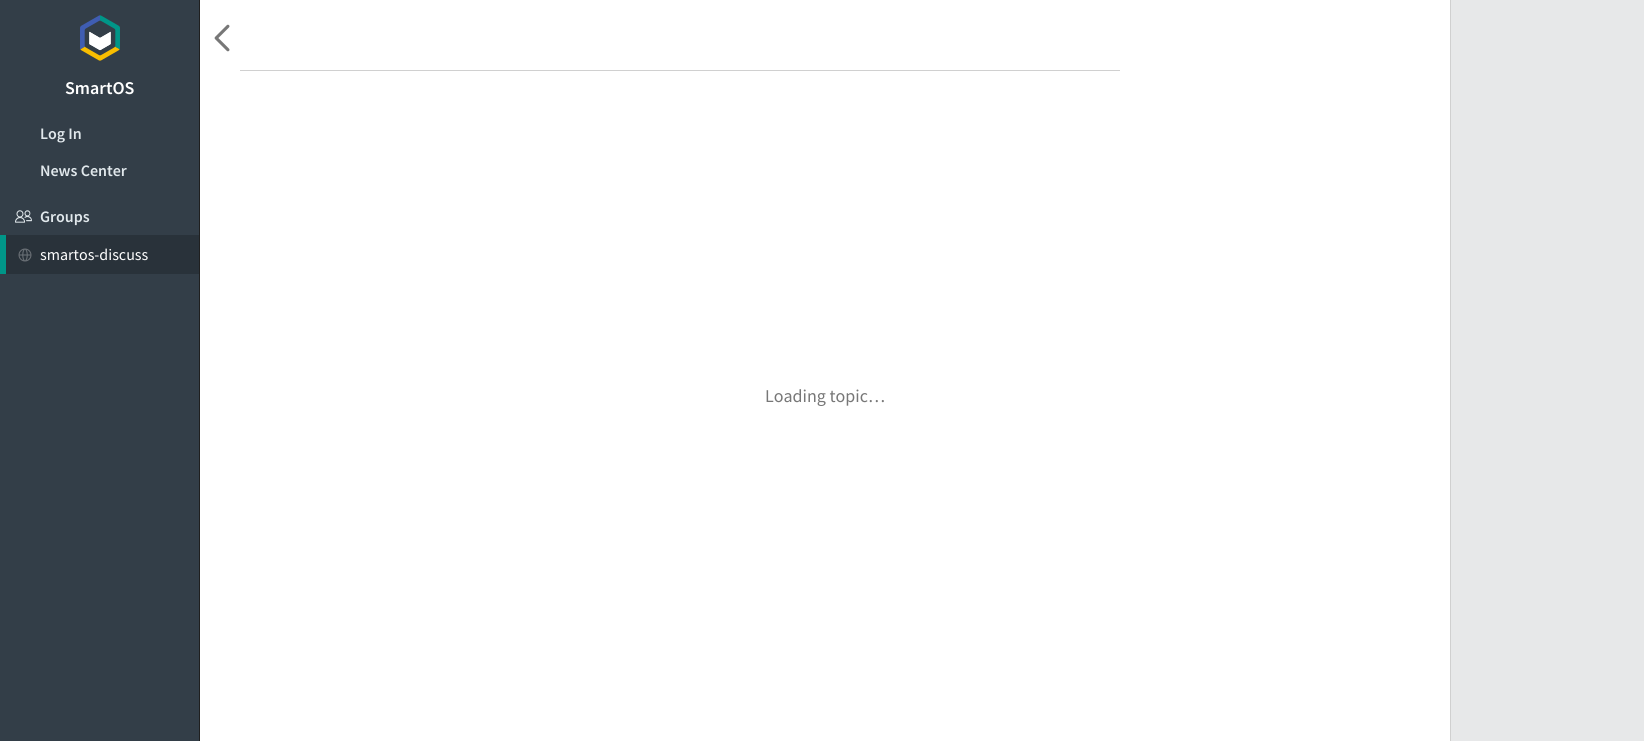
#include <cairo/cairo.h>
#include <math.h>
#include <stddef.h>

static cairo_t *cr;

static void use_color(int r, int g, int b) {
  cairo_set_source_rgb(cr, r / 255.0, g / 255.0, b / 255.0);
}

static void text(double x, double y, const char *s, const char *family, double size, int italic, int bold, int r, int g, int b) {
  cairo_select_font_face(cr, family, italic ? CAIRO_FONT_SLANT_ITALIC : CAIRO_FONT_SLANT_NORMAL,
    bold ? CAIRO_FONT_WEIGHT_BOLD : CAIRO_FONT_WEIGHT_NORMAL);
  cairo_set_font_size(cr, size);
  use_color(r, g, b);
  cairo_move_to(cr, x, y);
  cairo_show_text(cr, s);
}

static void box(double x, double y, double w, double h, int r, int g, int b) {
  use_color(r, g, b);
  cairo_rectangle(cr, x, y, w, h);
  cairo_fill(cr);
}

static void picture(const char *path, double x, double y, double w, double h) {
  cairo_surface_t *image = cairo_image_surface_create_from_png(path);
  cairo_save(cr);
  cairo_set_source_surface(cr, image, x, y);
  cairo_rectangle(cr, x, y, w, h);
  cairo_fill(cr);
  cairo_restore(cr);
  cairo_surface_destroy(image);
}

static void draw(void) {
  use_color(231, 232, 233);
  cairo_paint(cr);
  box(0, 0, 199, 741, 51, 62, 72);
  box(199, 0, 1, 741, 31, 31, 31);
  picture("img_01.png", 80, 15, 40, 46);
  picture("img_02.png", 15, 210, 17, 13);
  box(6, 235, 193, 39, 41, 50, 58);
  box(0, 235, 6, 39, 0, 150, 136);
  picture("img_03.png", 18, 248, 14, 14);
  box(1450, 0, 1, 741, 208, 208, 208);
  box(200, 0, 1250, 741, 255, 255, 255);
  box(240, 70, 880, 1, 208, 208, 208);
  picture("img_04.png", 214, 24, 16, 28);
  text(65, 94, "SmartOS", "Source Sans Pro SemiBold", 18, 0, 0, 255, 255, 255);
  text(40, 139, "Log In", "Source Sans Pro SemiBold", 16, 0, 0, 225, 232, 236);
  text(40, 176, "News Center", "Source Sans Pro SemiBold", 16, 0, 0, 225, 232, 236);
  text(40, 222, "Groups", "Source Sans Pro SemiBold", 16, 0, 0, 225, 232, 236);
  text(40, 260, "smartos-discuss", "Source Sans Pro", 16, 0, 0, 255, 255, 255);
  text(765, 402, "Loading topic…", "Source Sans Pro", 18, 0, 0, 119, 119, 119);
}

int main(void) {
  cairo_surface_t *surface = cairo_image_surface_create(CAIRO_FORMAT_RGB24, 1644, 741);
  cr = cairo_create(surface);
  cairo_font_options_t *options = cairo_font_options_create();
  cairo_font_options_set_hint_metrics(options, CAIRO_HINT_METRICS_OFF);
  cairo_font_options_set_hint_style(options, CAIRO_HINT_STYLE_NONE);
  cairo_set_font_options(cr, options);
  cairo_set_miter_limit(cr, 4);
  draw();
  cairo_surface_write_to_png(surface, "out.png");
  cairo_font_options_destroy(options);
  cairo_destroy(cr);
  cairo_surface_destroy(surface);
  return 0;
}
